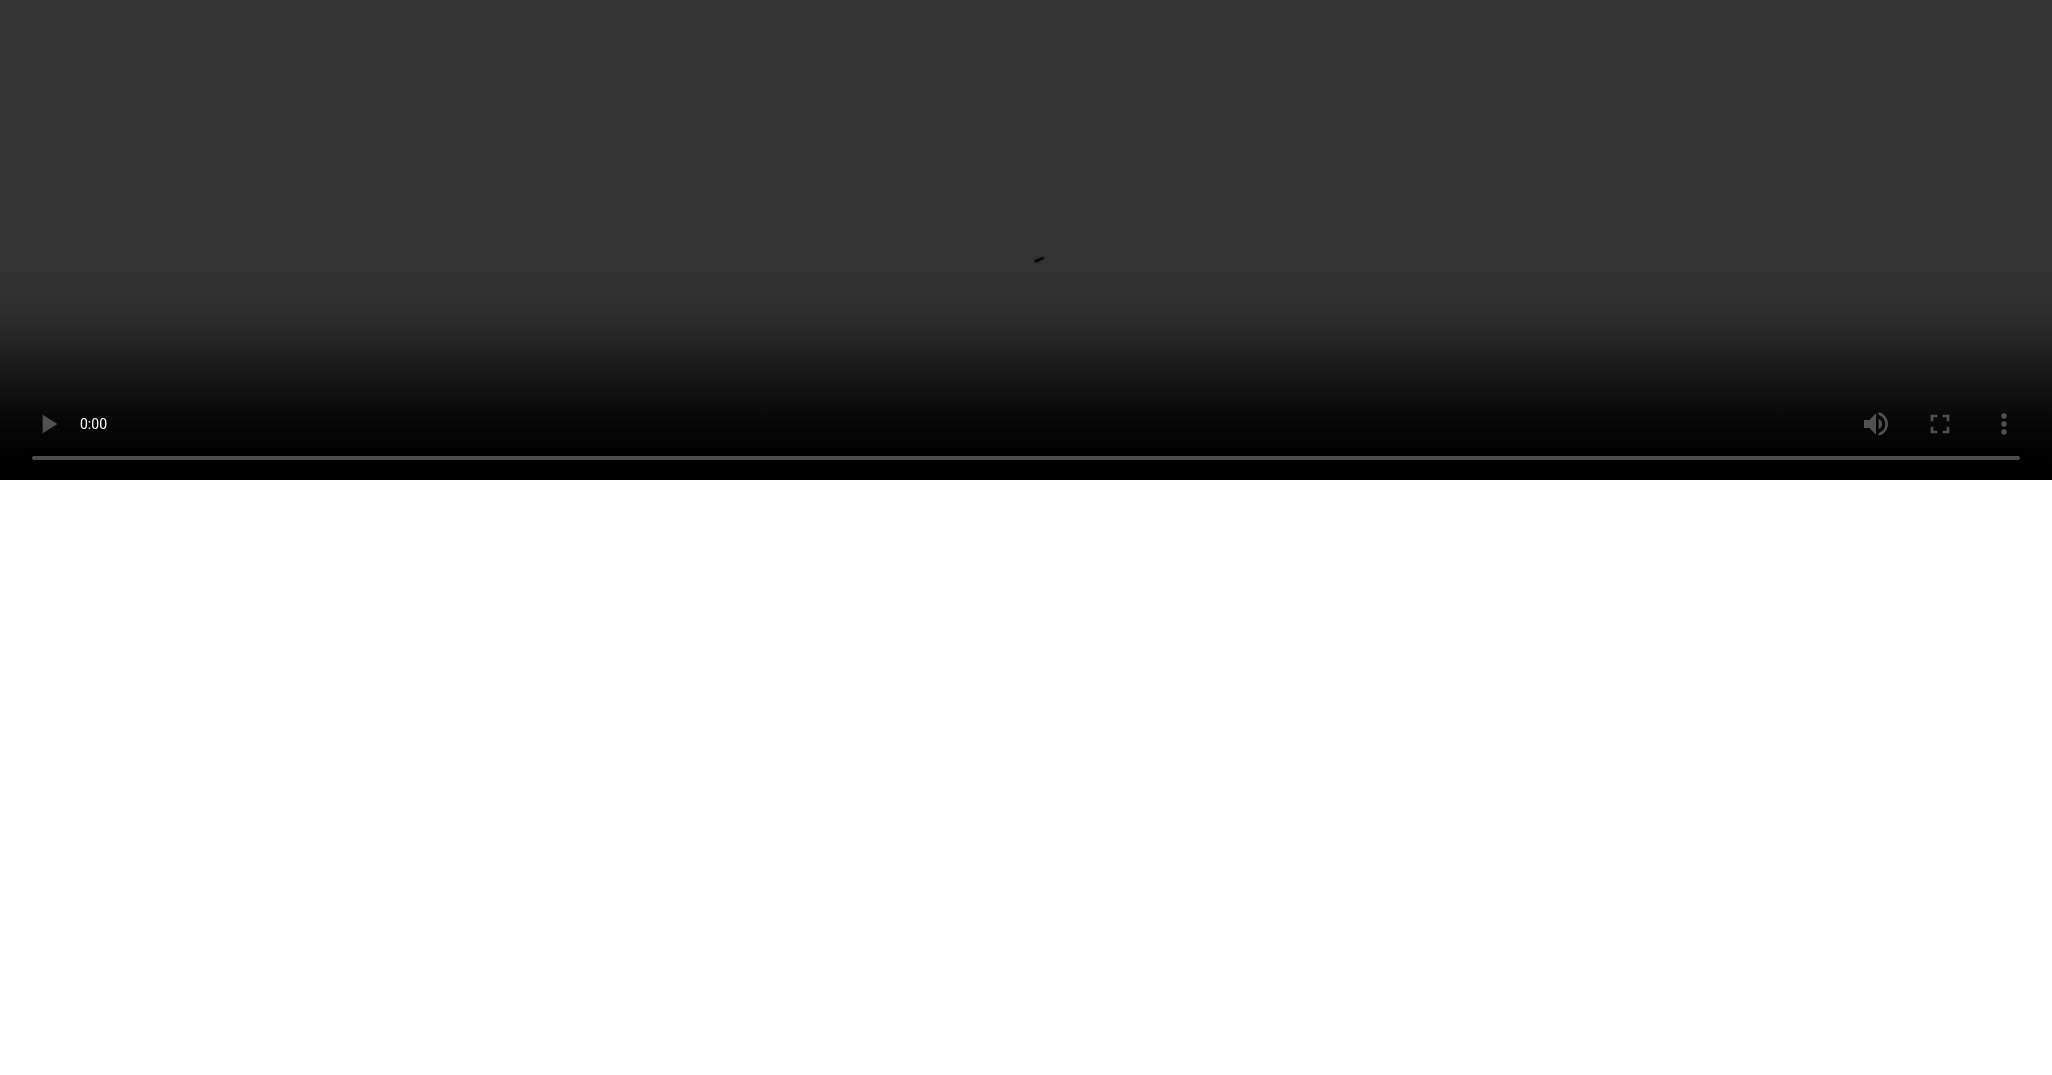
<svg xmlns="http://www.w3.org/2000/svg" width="2052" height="1075">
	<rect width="100%" height="100%" fill="#FFFFFF" />
	<image x="0" y="0" width="2052" height="480" href="assets/img1.png" />
</svg>
